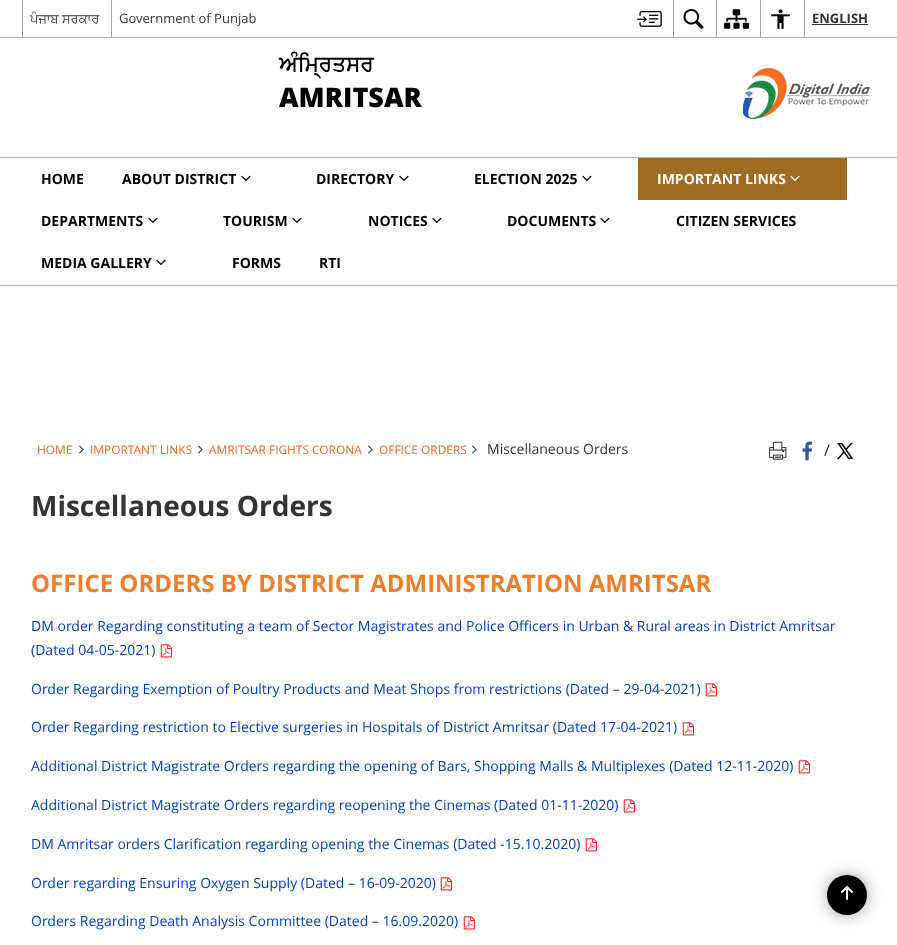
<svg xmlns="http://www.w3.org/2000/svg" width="897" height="945">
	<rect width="100%" height="100%" fill="#FFFFFF" />
	<rect x="0" y="37" width="897" height="1" fill="#ABABAB" />
	<rect x="22" y="0" width="1" height="37" fill="#A3A3A3" />
	<text x="30" y="23" font-family="FreeSans" font-size="13" fill="#333333">ਪੰਜਾਬ ਸਰਕਾਰ</text>
	<rect x="111" y="0" width="1" height="37" fill="#A3A3A3" />
	<text x="119" y="23" font-family="Open Sans" font-size="13" fill="#333333">Government of Punjab</text>
	<image x="637" y="10" width="25" height="17" href="assets/img1.png" />
	<rect x="673" y="0" width="1" height="37" fill="#A3A3A3" />
	<image x="683" y="9" width="21" height="20" href="assets/img2.png" />
	<rect x="716" y="0" width="1" height="37" fill="#A3A3A3" />
	<image x="724" y="9" width="25" height="20" href="assets/img3.png" />
	<rect x="760" y="0" width="1" height="37" fill="#A3A3A3" />
	<image x="771" y="9" width="19" height="20" href="assets/img4.png" />
	<rect x="804" y="0" width="1" height="37" fill="#A3A3A3" />
	<text x="812" y="23" font-family="Open Sans" font-size="13" font-weight="700" fill="#333333">ENGLISH</text>
	<rect x="812" y="24" width="56" height="1" fill="#333333" />
	<text x="279" y="71" font-family="FreeSans" font-size="21.5" font-weight="700" fill="#000000">ਅੰਮ੍ਰਿਤਸਰ</text>
	<text x="279" y="107" font-family="Open Sans" font-size="27" font-weight="800" fill="#000000">AMRITSAR</text>
	<image x="743" y="68" width="127" height="51" href="assets/img5.png" />
	<rect x="0" y="157" width="897" height="1" fill="#B3B3B3" />
	<rect x="0" y="285" width="897" height="1" fill="#B3B3B3" />
	<g font-family="Open Sans" font-size="14" font-weight="700" fill="#000000">
		<text x="41" y="184">HOME</text>
		<text x="122" y="184">ABOUT DISTRICT</text>
	</g>
	<image x="241" y="175" width="10" height="7" href="assets/img6.png" />
	<text x="316" y="184" font-family="Open Sans" font-size="14" font-weight="700" fill="#000000">DIRECTORY</text>
	<image x="399" y="175" width="10" height="7" href="assets/img6.png" />
	<text x="474" y="184" font-family="Open Sans" font-size="14" font-weight="700" fill="#000000">ELECTION 2025</text>
	<image x="582" y="175" width="10" height="7" href="assets/img6.png" />
	<rect x="638" y="158" width="209" height="42" fill="#9E6B22" />
	<text x="657" y="184" font-family="Open Sans" font-size="14" font-weight="700" fill="#FFFFFF">IMPORTANT LINKS</text>
	<image x="790" y="175" width="10" height="7" href="assets/img7.png" />
	<text x="41" y="226" font-family="Open Sans" font-size="14" font-weight="700" fill="#000000">DEPARTMENTS</text>
	<image x="148" y="217" width="10" height="7" href="assets/img6.png" />
	<text x="223" y="226" font-family="Open Sans" font-size="14" font-weight="700" fill="#000000">TOURISM</text>
	<image x="292" y="217" width="10" height="7" href="assets/img6.png" />
	<text x="368" y="226" font-family="Open Sans" font-size="14" font-weight="700" fill="#000000">NOTICES</text>
	<image x="432" y="217" width="10" height="7" href="assets/img6.png" />
	<text x="507" y="226" font-family="Open Sans" font-size="14" font-weight="700" fill="#000000">DOCUMENTS</text>
	<image x="600" y="217" width="10" height="7" href="assets/img6.png" />
	<g font-family="Open Sans" font-size="14" font-weight="700" fill="#000000">
		<text x="676" y="226">CITIZEN SERVICES</text>
		<text x="41" y="268">MEDIA GALLERY</text>
	</g>
	<image x="156" y="259" width="10" height="7" href="assets/img6.png" />
	<g font-family="Open Sans" font-size="14" font-weight="700" fill="#000000">
		<text x="232" y="268">FORMS</text>
		<text x="319" y="268">RTI</text>
	</g>
	<text x="37" y="454" font-family="Open Sans" font-size="11.9" fill="#F26522">HOME</text>
	<image x="79" y="445" width="5" height="9" href="assets/img8.png" />
	<text x="90" y="454" font-family="Open Sans" font-size="11.9" fill="#F26522">IMPORTANT LINKS</text>
	<image x="198" y="445" width="5" height="9" href="assets/img8.png" />
	<text x="209" y="454" font-family="Open Sans" font-size="11.9" fill="#F26522">AMRITSAR FIGHTS CORONA</text>
	<image x="368" y="445" width="5" height="9" href="assets/img8.png" />
	<text x="379" y="454" font-family="Open Sans" font-size="11.9" fill="#F26522">OFFICE ORDERS</text>
	<image x="472" y="445" width="5" height="9" href="assets/img8.png" />
	<text x="487" y="454" font-family="Open Sans" font-size="14" fill="#333333">Miscellaneous Orders</text>
	<image x="769" y="441" width="18" height="19" href="assets/img9.png" />
	<image x="802" y="441" width="11" height="20" href="assets/img10.png" />
	<text x="824" y="456" font-family="Open Sans" font-size="16" fill="#333333">/</text>
	<image x="837" y="442" width="17" height="18" href="assets/img11.png" />
	<text x="31" y="516" font-family="Open Sans" font-size="28" font-weight="700" fill="#333333">Miscellaneous Orders</text>
	<text x="31" y="592" font-family="Open Sans" font-size="24" font-weight="700" fill="#EB7F2D">OFFICE ORDERS BY DISTRICT ADMINISTRATION AMRITSAR</text>
	<g font-family="Open Sans" font-size="14" fill="#0042BF">
		<text x="31" y="631">DM order Regarding constituting a team of Sector Magistrates and Police Officers in Urban &amp; Rural areas in District Amritsar</text>
		<text x="31" y="655">(Dated 04-05-2021)</text>
	</g>
	<image x="160" y="644" width="12" height="14" href="assets/img12.png" />
	<text x="31" y="694" font-family="Open Sans" font-size="14" fill="#0042BF">Order Regarding Exemption of Poultry Products and Meat Shops from restrictions (Dated – 29-04-2021)</text>
	<image x="705" y="683" width="12" height="14" href="assets/img12.png" />
	<text x="31" y="732" font-family="Open Sans" font-size="14" fill="#0042BF">Order Regarding restriction to Elective surgeries in Hospitals of District Amritsar (Dated 17-04-2021)</text>
	<image x="682" y="722" width="12" height="14" href="assets/img12.png" />
	<text x="31" y="771" font-family="Open Sans" font-size="14" fill="#0042BF">Additional District Magistrate Orders regarding the opening of Bars, Shopping Malls &amp; Multiplexes (Dated 12-11-2020)</text>
	<image x="798" y="760" width="12" height="14" href="assets/img12.png" />
	<text x="31" y="810" font-family="Open Sans" font-size="14" fill="#0042BF">Additional District Magistrate Orders regarding reopening the Cinemas (Dated 01-11-2020)</text>
	<image x="623" y="799" width="12" height="14" href="assets/img12.png" />
	<text x="31" y="849" font-family="Open Sans" font-size="14" fill="#0042BF">DM Amritsar orders Clarification regarding opening the Cinemas (Dated -15.10.2020)</text>
	<image x="585" y="838" width="12" height="14" href="assets/img12.png" />
	<text x="31" y="888" font-family="Open Sans" font-size="14" fill="#0042BF">Order regarding Ensuring Oxygen Supply (Dated – 16-09-2020)</text>
	<image x="440" y="877" width="12" height="14" href="assets/img12.png" />
	<text x="31" y="926" font-family="Open Sans" font-size="14" fill="#0042BF">Orders Regarding Death Analysis Committee (Dated – 16.09.2020)</text>
	<image x="463" y="916" width="12" height="14" href="assets/img12.png" />
	<rect x="832" y="880" width="30" height="30" rx="15" fill="#3C3C3C" filter="blur(9.5px)" />
	<circle cx="847" cy="895" r="20" fill="#000000" />
	<image x="841" y="886" width="12" height="14" href="assets/img13.png" />
</svg>
